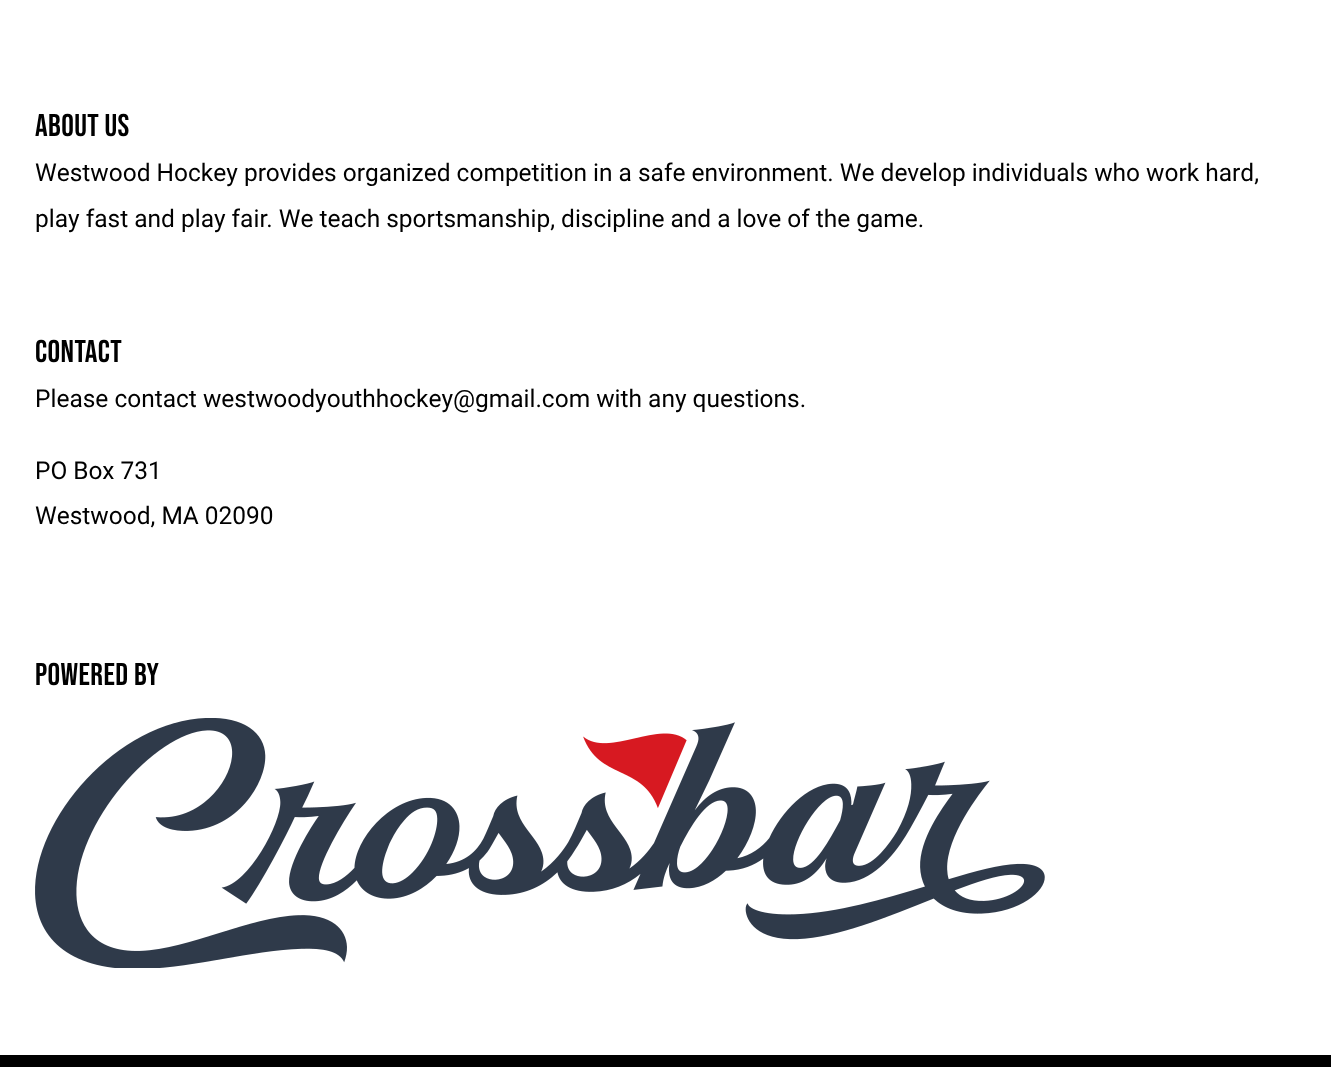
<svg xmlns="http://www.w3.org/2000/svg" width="1331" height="1067">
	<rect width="100%" height="100%" fill="#FFFFFF" />
	<text x="35" y="136" font-family="Bebas Neue" font-size="31.5" letter-spacing="0.4" fill="#000000">ABOUT US</text>
	<g font-family="Roboto" font-size="24.5" fill="#000000">
		<text x="35" y="181">Westwood Hockey provides organized competition in a safe environment. We develop individuals who work hard,</text>
		<text x="35" y="227">play fast and play fair. We teach sportsmanship, discipline and a love of the game.</text>
	</g>
	<text x="35" y="362" font-family="Bebas Neue" font-size="31.5" letter-spacing="0.4" fill="#000000">CONTACT</text>
	<g font-family="Roboto" font-size="24.5" fill="#000000">
		<text x="35" y="407">Please contact westwoodyouthhockey@gmail.com with any questions.</text>
		<text x="35" y="479">PO Box 731</text>
		<text x="35" y="524">Westwood, MA 02090</text>
	</g>
	<text x="35" y="685" font-family="Bebas Neue" font-size="31.5" letter-spacing="0.4" fill="#000000">POWERED BY</text>
	<image x="35" y="718" width="1010" height="250" href="assets/img1.png" />
	<rect x="0" y="1055" width="1331" height="12" fill="#000000" />
</svg>
